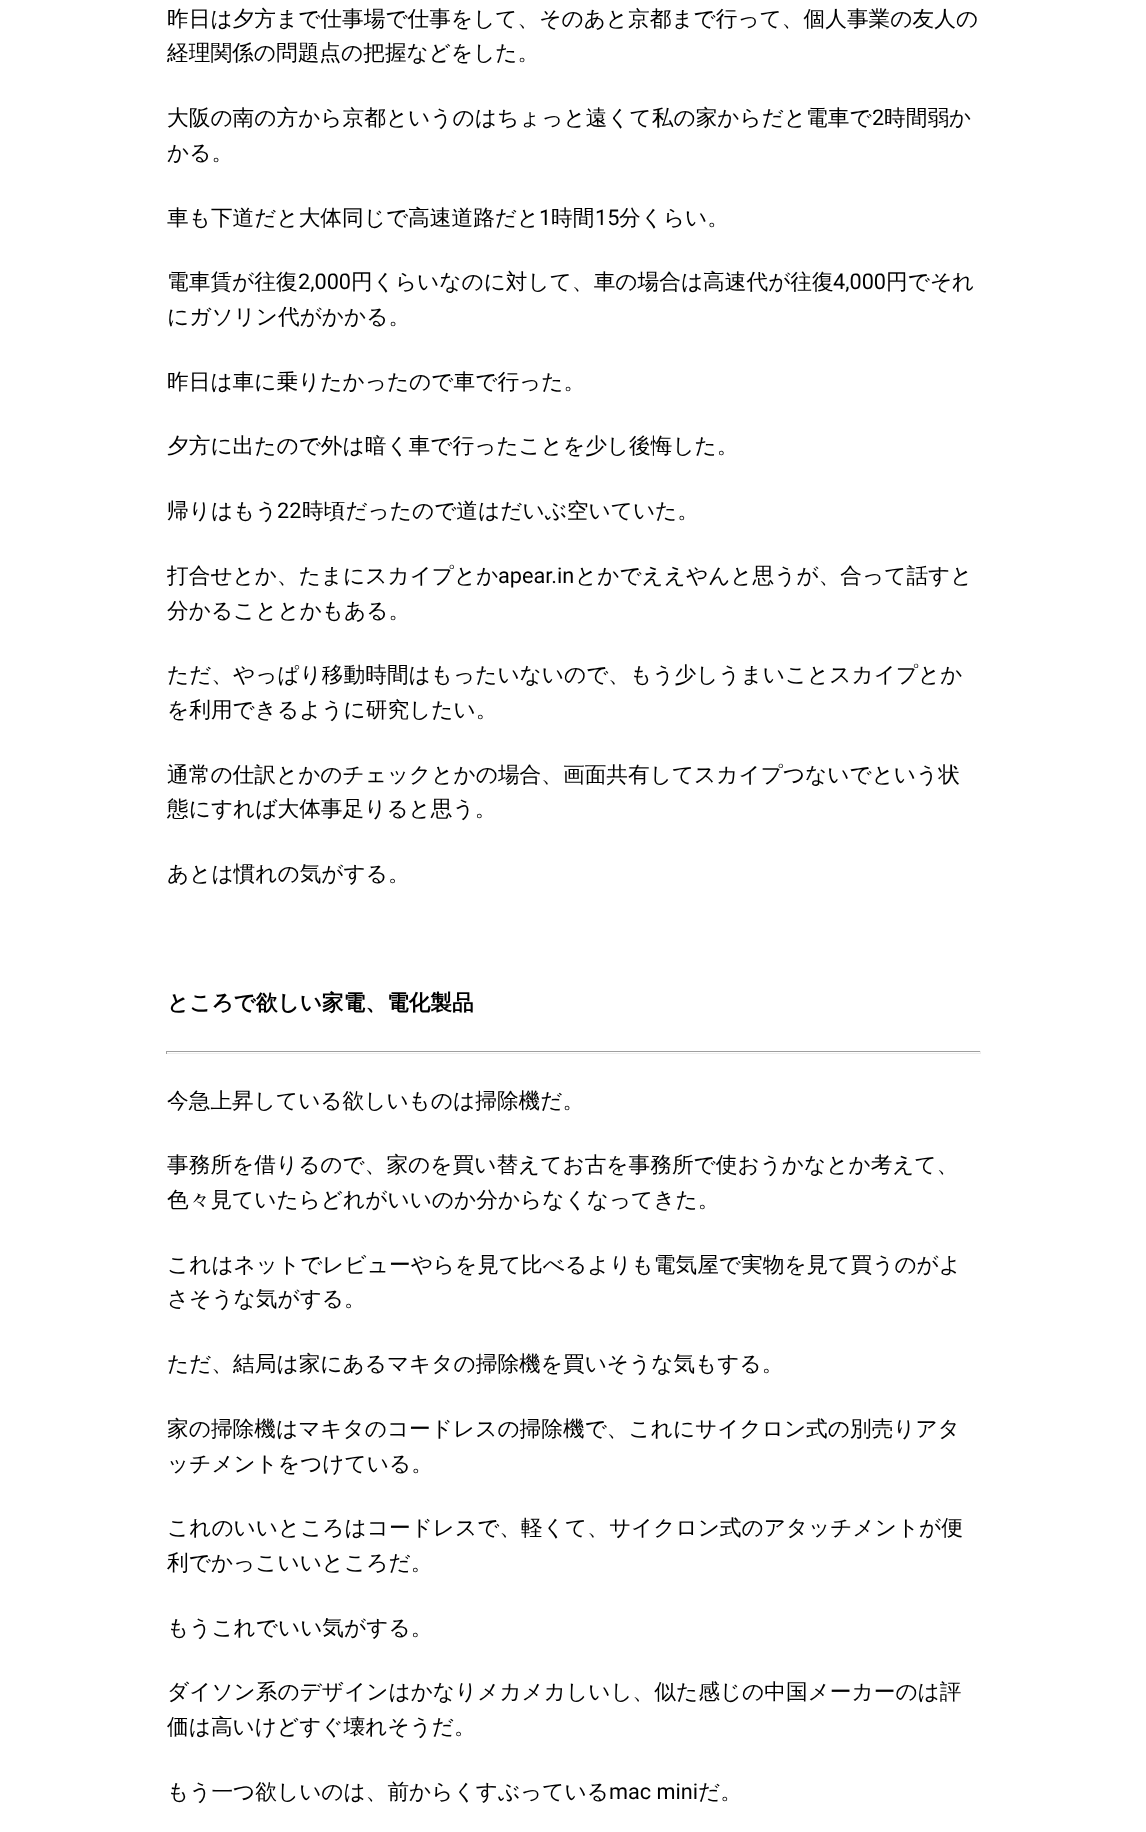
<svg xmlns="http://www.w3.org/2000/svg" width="1146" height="1832">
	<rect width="100%" height="100%" fill="#FFFFFF" />
	<g font-family="WenQuanYi Zen Hei" font-size="21.7" font-weight="500" fill="#000000">
		<text x="167" y="26">昨日は夕方まで仕事場で仕事をして、そのあと京都まで行って、個人事業の友人の</text>
		<text x="167" y="60">経理関係の問題点の把握などをした。</text>
		<text x="167" y="125">大阪の南の方から京都というのはちょっと遠くて私の家からだと電車で</text>
	</g>
	<text x="872" y="125" font-family="Roboto" font-size="21.7" fill="#000000">2</text>
	<g font-family="WenQuanYi Zen Hei" font-size="21.7" font-weight="500" fill="#000000">
		<text x="884" y="125">時間弱か</text>
		<text x="167" y="160">かる。</text>
		<text x="167" y="225">車も下道だと大体同じで高速道路だと</text>
	</g>
	<text x="539" y="225" font-family="Roboto" font-size="21.7" fill="#000000">1</text>
	<text x="551" y="225" font-family="WenQuanYi Zen Hei" font-size="21.7" font-weight="500" fill="#000000">時間</text>
	<text x="595" y="225" font-family="Roboto" font-size="21.7" fill="#000000">15</text>
	<g font-family="WenQuanYi Zen Hei" font-size="21.7" font-weight="500" fill="#000000">
		<text x="619" y="225">分くらい。</text>
		<text x="167" y="289">電車賃が往復</text>
	</g>
	<text x="298" y="289" font-family="Roboto" font-size="21.7" fill="#000000">2,000</text>
	<text x="351" y="289" font-family="WenQuanYi Zen Hei" font-size="21.7" font-weight="500" fill="#000000">円くらいなのに対して、車の場合は高速代が往復</text>
	<text x="833" y="289" font-family="Roboto" font-size="21.7" fill="#000000">4,000</text>
	<g font-family="WenQuanYi Zen Hei" font-size="21.7" font-weight="500" fill="#000000">
		<text x="886" y="289">円でそれ</text>
		<text x="167" y="324">にガソリン代がかかる。</text>
		<text x="167" y="389">昨日は車に乗りたかったので車で行った。</text>
		<text x="167" y="453">夕方に出たので外は暗く車で行ったことを少し後悔した。</text>
		<text x="167" y="518">帰りはもう</text>
	</g>
	<text x="277" y="518" font-family="Roboto" font-size="21.7" fill="#000000">22</text>
	<g font-family="WenQuanYi Zen Hei" font-size="21.7" font-weight="500" fill="#000000">
		<text x="302" y="518">時頃だったので道はだいぶ空いていた。</text>
		<text x="167" y="583">打合せとか、たまにスカイプとか</text>
	</g>
	<text x="498" y="583" font-family="Roboto" font-size="21.7" fill="#000000">apear.in</text>
	<g font-family="WenQuanYi Zen Hei" font-size="21.7" font-weight="500" fill="#000000">
		<text x="575" y="583">とかでええやんと思うが、合って話すと</text>
		<text x="167" y="618">分かることとかもある。</text>
		<text x="167" y="682">ただ、やっぱり移動時間はもったいないので、もう少しうまいことスカイプとか</text>
		<text x="167" y="717">を利用できるように研究したい。</text>
		<text x="167" y="782">通常の仕訳とかのチェックとかの場合、画面共有してスカイプつないでという状</text>
		<text x="167" y="816">態にすれば大体事足りると思う。</text>
		<text x="167" y="881">あとは慣れの気がする。</text>
	</g>
	<text x="167" y="1010" font-family="WenQuanYi Zen Hei" font-size="21.7" font-weight="700" fill="#000000">ところで欲しい家電、電化製品</text>
	<rect x="166" y="1051" width="815" height="1" fill="#9F9F9F" />
	<rect x="980" y="1051" width="1" height="3" fill="#EEEEEE" />
	<rect x="166" y="1053" width="815" height="1" fill="#EEEEEE" />
	<rect x="166" y="1051" width="1" height="3" fill="#9F9F9F" />
	<g font-family="WenQuanYi Zen Hei" font-size="21.7" font-weight="500" fill="#000000">
		<text x="167" y="1108">今急上昇している欲しいものは掃除機だ。</text>
		<text x="167" y="1172">事務所を借りるので、家のを買い替えてお古を事務所で使おうかなとか考えて、</text>
		<text x="167" y="1207">色々見ていたらどれがいいのか分からなくなってきた。</text>
		<text x="167" y="1272">これはネットでレビューやらを見て比べるよりも電気屋で実物を見て買うのがよ</text>
		<text x="167" y="1306">さそうな気がする。</text>
		<text x="167" y="1371">ただ、結局は家にあるマキタの掃除機を買いそうな気もする。</text>
		<text x="167" y="1436">家の掃除機はマキタのコードレスの掃除機で、これにサイクロン式の別売りアタ</text>
		<text x="167" y="1471">ッチメントをつけている。</text>
		<text x="167" y="1535">これのいいところはコードレスで、軽くて、サイクロン式のアタッチメントが便</text>
		<text x="167" y="1570">利でかっこいいところだ。</text>
		<text x="167" y="1635">もうこれでいい気がする。</text>
		<text x="167" y="1699">ダイソン系のデザインはかなりメカメカしいし、似た感じの中国メーカーのは評</text>
		<text x="167" y="1734">価は高いけどすぐ壊れそうだ。</text>
		<text x="167" y="1799">もう一つ欲しいのは、前からくすぶっている</text>
	</g>
	<text x="609" y="1799" font-family="Roboto" font-size="21.7" fill="#000000">mac mini</text>
	<text x="698" y="1799" font-family="WenQuanYi Zen Hei" font-size="21.7" font-weight="500" fill="#000000">だ。</text>
</svg>
